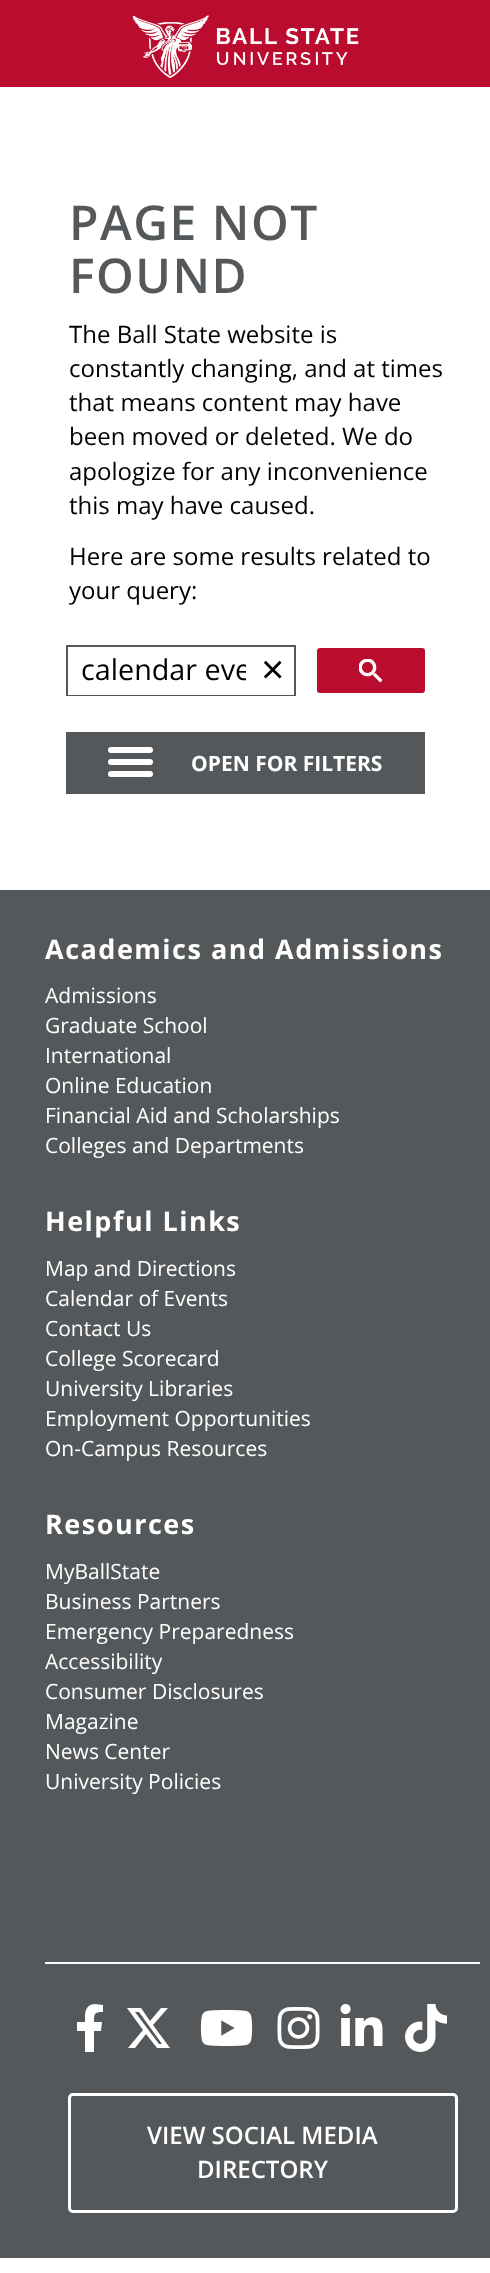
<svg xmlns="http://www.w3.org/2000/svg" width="490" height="2273">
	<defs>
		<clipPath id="clip1"><rect x="74" y="651" width="172" height="36" /></clipPath>
	</defs>
	<rect width="100%" height="100%" fill="#FFFFFF" />
	<rect x="0" y="0" width="490" height="87" fill="#BA0C2F" />
	<image x="132" y="15" width="227" height="63" href="assets/img1.png" />
	<g font-family="Open Sans" font-size="48" font-weight="600" letter-spacing="1.5" fill="#54585A">
		<text x="69" y="240">PAGE NOT</text>
		<text x="69" y="293">FOUND</text>
	</g>
	<g font-family="Open Sans" font-size="24" fill="#000000">
		<text x="69" y="343">The Ball State website is</text>
		<text x="69" y="377">constantly changing, and at times</text>
		<text x="69" y="411">that means content may have</text>
		<text x="69" y="445">been moved or deleted. We do</text>
		<text x="69" y="480">apologize for any inconvenience</text>
		<text x="69" y="514">this may have caused.</text>
		<text x="69" y="565">Here are some results related to</text>
		<text x="69" y="599">your query:</text>
	</g>
	<rect x="67" y="646" width="228" height="49" fill="none" stroke="#54585A" stroke-width="2" />
	<rect x="68" y="694" width="226" height="1" fill="#FFFFFF" />
	<g clip-path="url(#clip1)">
		<text x="81" y="680" font-family="Open Sans" font-size="28.75" fill="#000000">calendar eve</text>
	</g>
	<text x="261" y="683" font-family="Liberation Sans" font-size="40" fill="#000000">×</text>
	<rect x="318" y="649" width="106" height="43" rx="2" fill="#BA0C2F" stroke="#BA0C2F" stroke-width="2" />
	<image x="359" y="659" width="24" height="24" href="assets/img2.png" />
	<rect x="66" y="732" width="359" height="62" fill="#54585A" />
	<rect x="108" y="747" width="45" height="6" rx="3" fill="#FFFFFF" />
	<rect x="108" y="759" width="45" height="6" rx="3" fill="#FFFFFF" />
	<rect x="108" y="771" width="45" height="6" rx="3" fill="#FFFFFF" />
	<text x="191" y="771" font-family="Open Sans" font-size="21" font-weight="700" fill="#FFFFFF">OPEN FOR FILTERS</text>
	<rect x="0" y="890" width="490" height="1368" fill="#54585A" />
	<text x="45" y="959" font-family="Open Sans" font-size="27" font-weight="700" letter-spacing="1.5" fill="#FFFFFF">Academics and Admissions</text>
	<g font-family="Open Sans" font-size="21" fill="#FFFFFF">
		<text x="45" y="1003">Admissions</text>
		<text x="45" y="1033">Graduate School</text>
		<text x="45" y="1063">International</text>
		<text x="45" y="1093">Online Education</text>
		<text x="45" y="1123">Financial Aid and Scholarships</text>
		<text x="45" y="1153">Colleges and Departments</text>
	</g>
	<text x="45" y="1231" font-family="Open Sans" font-size="27" font-weight="700" letter-spacing="1.5" fill="#FFFFFF">Helpful Links</text>
	<g font-family="Open Sans" font-size="21" fill="#FFFFFF">
		<text x="45" y="1276">Map and Directions</text>
		<text x="45" y="1306">Calendar of Events</text>
		<text x="45" y="1336">Contact Us</text>
		<text x="45" y="1366">College Scorecard</text>
		<text x="45" y="1396">University Libraries</text>
		<text x="45" y="1426">Employment Opportunities</text>
		<text x="45" y="1456">On-Campus Resources</text>
	</g>
	<text x="45" y="1534" font-family="Open Sans" font-size="27" font-weight="700" letter-spacing="1.5" fill="#FFFFFF">Resources</text>
	<g font-family="Open Sans" font-size="21" fill="#FFFFFF">
		<text x="45" y="1579">MyBallState</text>
		<text x="45" y="1609">Business Partners</text>
		<text x="45" y="1639">Emergency Preparedness</text>
		<text x="45" y="1669">Accessibility</text>
		<text x="45" y="1699">Consumer Disclosures</text>
		<text x="45" y="1729">Magazine</text>
		<text x="45" y="1759">News Center</text>
		<text x="45" y="1789">University Policies</text>
	</g>
	<rect x="45" y="1962" width="435" height="2" fill="#FFFFFF" />
	<path d="M101 2031L102 2022H94C94 2014 94 2012 103 2012V2005L95 2004C84 2005 85 2014 85 2022H77V2031H85V2052H94V2031Z" fill="#FFFFFF" />
	<path d="M161 2008H168L153 2025L170 2048H157L146 2034L135 2048H128L143 2030L127 2008H141L150 2021ZM159 2044H162L139 2012H135Z" fill="#FFFFFF" />
	<image x="200" y="2010" width="53" height="36" href="assets/img3.png" />
	<image x="277" y="2007" width="43" height="42" href="assets/img4.png" />
	<image x="340" y="2004" width="43" height="42" href="assets/img5.png" />
	<image x="405" y="2004" width="42" height="48" href="assets/img6.png" />
	<rect x="69.5" y="2094.5" width="387" height="117" rx="3.5" fill="none" stroke="#FFFFFF" stroke-width="3" />
	<g font-family="Open Sans" font-size="24" font-weight="600" fill="#FFFFFF">
		<text x="147" y="2144">VIEW SOCIAL MEDIA</text>
		<text x="197" y="2178">DIRECTORY</text>
	</g>
</svg>
